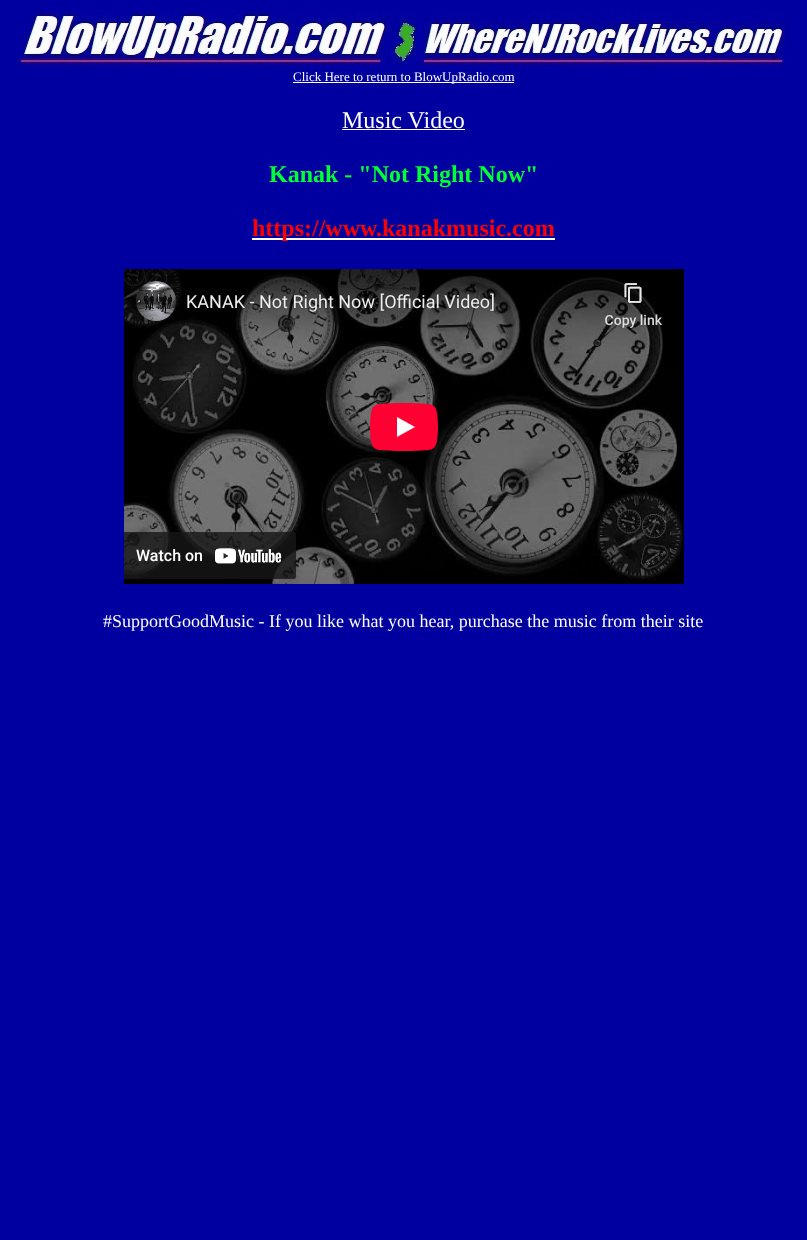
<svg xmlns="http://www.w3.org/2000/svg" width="807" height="1240">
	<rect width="100%" height="100%" fill="#0000A0" />
	<image x="15" y="10" width="772" height="59" href="assets/img1.png" />
	<rect x="293" y="82" width="221" height="1" fill="#FFFFFF" />
	<text x="293" y="81" font-family="Liberation Serif" font-size="13" fill="#FFFFFF">Click Here to return to BlowUpRadio.com</text>
	<text x="342" y="128" font-family="Liberation Serif" font-size="24" fill="#FFFFFF">Music Video</text>
	<rect x="342" y="129" width="123" height="1" fill="#FFFFFF" />
	<text x="269" y="182" font-family="Liberation Serif" font-size="24" font-weight="700" fill="#00FF33">Kanak - "Not Right Now"</text>
	<rect x="252" y="238" width="303" height="2" fill="#FFFFFF" />
	<text x="252" y="236" font-family="Liberation Serif" font-size="24" font-weight="700" fill="#FF0000">https://www.kanakmusic.com</text>
	<image x="124" y="269" width="560" height="315" href="assets/img2.png" />
	<text x="103" y="627" font-family="Liberation Serif" font-size="18" fill="#FFFFFF">#SupportGoodMusic - If you like what you hear, purchase the music from their site</text>
</svg>
